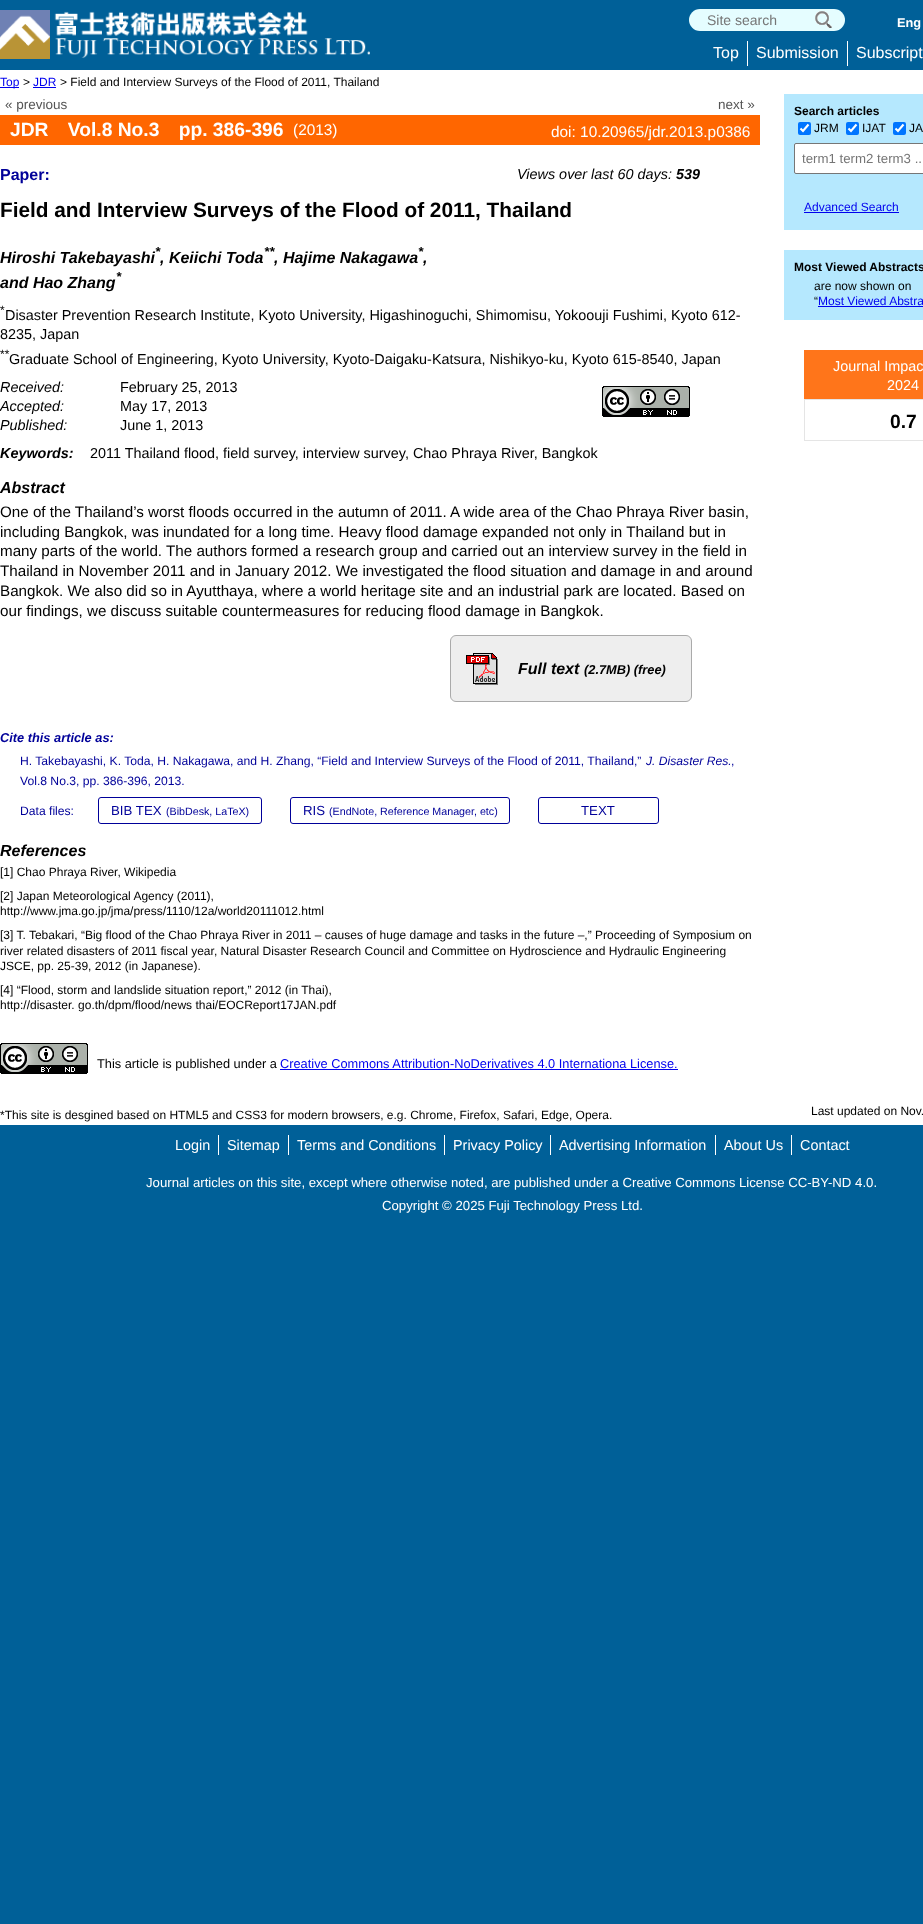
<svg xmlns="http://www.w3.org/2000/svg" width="923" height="1924">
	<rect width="100%" height="100%" fill="#006098" />
	<image x="0" y="10" width="370" height="49" href="assets/img1.png" />
	<rect x="689" y="9" width="156" height="22" rx="11" fill="#E5FDFF" />
	<text x="707" y="25" font-family="Liberation Sans" font-size="14" fill="#757575">Site search</text>
	<image x="815" y="11" width="17" height="17" href="assets/img2.png" />
	<text x="897" y="27" font-family="Liberation Sans" font-size="12.8" font-weight="700" fill="#FFFFFF">Eng</text>
	<rect x="747" y="41" width="1" height="25" fill="#FFFFFF" />
	<text x="713" y="58" font-family="Liberation Sans" font-size="16" fill="#FFFFFF">Top</text>
	<rect x="847" y="41" width="1" height="25" fill="#FFFFFF" />
	<g font-family="Liberation Sans" font-size="16" fill="#FFFFFF">
		<text x="756" y="58">Submission</text>
		<text x="856" y="58">Subscript</text>
	</g>
	<rect x="0" y="70" width="923" height="1055" fill="#FFFFFF" />
	<rect x="0" y="87" width="19" height="1" fill="#0000EE" />
	<text x="0" y="86" font-family="Liberation Sans" font-size="12" fill="#0000EE">Top</text>
	<text x="23" y="86" font-family="Liberation Sans" font-size="12" fill="#000000">&gt;</text>
	<text x="33" y="86" font-family="Liberation Sans" font-size="12" fill="#0000EE">JDR</text>
	<rect x="33" y="87" width="23" height="1" fill="#0000EE" />
	<text x="60" y="86" font-family="Liberation Sans" font-size="12" fill="#000000">&gt; Field and Interview Surveys of the Flood of 2011, Thailand</text>
	<g font-family="Liberation Sans" font-size="13.5" fill="#555555">
		<text x="5" y="109">« previous</text>
		<text x="718" y="109">next »</text>
	</g>
	<rect x="0" y="115" width="760" height="30" fill="#FF6600" />
	<text x="10" y="136" font-family="Liberation Sans" font-size="19.25" font-weight="700" fill="#FFFFFF">JDR Vol.8 No.3 pp. 386-396</text>
	<g font-family="Liberation Sans" font-size="15.4" fill="#FFFFFF">
		<text x="293" y="135">(2013)</text>
		<text x="551" y="137">doi: 10.20965/jdr.2013.p0386</text>
	</g>
	<text x="0" y="180" font-family="Liberation Sans" font-size="16" font-weight="700" fill="#000099">Paper:</text>
	<text x="517" y="179" font-family="Liberation Sans" font-size="14.4" font-style="italic" fill="#000000">Views over last 60 days:</text>
	<text x="676" y="179" font-family="Liberation Sans" font-size="14.4" font-weight="700" font-style="italic" fill="#000000">539</text>
	<text x="0" y="217" font-family="Liberation Sans" font-size="20.8" font-weight="700" fill="#000000">Field and Interview Surveys of the Flood of 2011, Thailand</text>
	<g font-family="Liberation Sans" font-size="13.25" font-weight="700" font-style="italic" fill="#000000">
		<text x="155" y="256">*</text>
		<text x="264" y="256">**</text>
		<text x="418" y="256">*</text>
	</g>
	<g font-family="Liberation Sans" font-size="16" font-weight="700" font-style="italic" fill="#000000">
		<text x="0" y="263">Hiroshi Takebayashi</text>
		<text x="160" y="263">, Keiichi Toda</text>
		<text x="274" y="263">, Hajime Nakagawa</text>
		<text x="423" y="263">,</text>
	</g>
	<text x="116" y="281" font-family="Liberation Sans" font-size="13.25" font-weight="700" font-style="italic" fill="#000000">*</text>
	<text x="0" y="288" font-family="Liberation Sans" font-size="16" font-weight="700" font-style="italic" fill="#000000">and Hao Zhang</text>
	<text x="0" y="314" font-family="Liberation Sans" font-size="12" fill="#000000">*</text>
	<g font-family="Liberation Sans" font-size="14.4" fill="#000000">
		<text x="5" y="320">Disaster Prevention Research Institute, Kyoto University, Higashinoguchi, Shimomisu, Yokoouji Fushimi, Kyoto 612-</text>
		<text x="0" y="339">8235, Japan</text>
	</g>
	<text x="0" y="358" font-family="Liberation Sans" font-size="12" fill="#000000">**</text>
	<text x="9" y="364" font-family="Liberation Sans" font-size="14.4" fill="#000000">Graduate School of Engineering, Kyoto University, Kyoto-Daigaku-Katsura, Nishikyo-ku, Kyoto 615-8540, Japan</text>
	<text x="0" y="392" font-family="Liberation Sans" font-size="14.4" font-style="italic" fill="#000000">Received:</text>
	<text x="120" y="392" font-family="Liberation Sans" font-size="14.4" fill="#000000">February 25, 2013</text>
	<text x="0" y="411" font-family="Liberation Sans" font-size="14.4" font-style="italic" fill="#000000">Accepted:</text>
	<text x="120" y="411" font-family="Liberation Sans" font-size="14.4" fill="#000000">May 17, 2013</text>
	<text x="0" y="430" font-family="Liberation Sans" font-size="14.4" font-style="italic" fill="#000000">Published:</text>
	<text x="120" y="430" font-family="Liberation Sans" font-size="14.4" fill="#000000">June 1, 2013</text>
	<image x="602" y="386" width="88" height="31" href="assets/img3.png" />
	<text x="0" y="458" font-family="Liberation Sans" font-size="14.4" font-weight="700" font-style="italic" fill="#000000">Keywords:</text>
	<text x="90" y="458" font-family="Liberation Sans" font-size="14.4" fill="#000000">2011 Thailand flood, field survey, interview survey, Chao Phraya River, Bangkok</text>
	<text x="0" y="493" font-family="Liberation Sans" font-size="16" font-weight="700" font-style="italic" fill="#000000">Abstract</text>
	<g font-family="Liberation Sans" font-size="15.2" fill="#000000">
		<text x="0" y="517">One of the Thailand’s worst floods occurred in the autumn of 2011. A wide area of the Chao Phraya River basin,</text>
		<text x="0" y="537">including Bangkok, was inundated for a long time. Heavy flood damage expanded not only in Thailand but in</text>
		<text x="0" y="556">many parts of the world. The authors formed a research group and carried out an interview survey in the field in</text>
		<text x="0" y="576">Thailand in November 2011 and in January 2012. We investigated the flood situation and damage in and around</text>
		<text x="0" y="596">Bangkok. We also did so in Ayutthaya, where a world heritage site and an industrial park are located. Based on</text>
		<text x="0" y="616">our findings, we discuss suitable countermeasures for reducing flood damage in Bangkok.</text>
	</g>
	<rect x="450.5" y="635.5" width="241" height="66" rx="5.5" fill="#EEEEEE" stroke="#AAAAAA" />
	<image x="466" y="653" width="32" height="32" href="assets/img4.png" />
	<text x="518" y="674" font-family="Liberation Sans" font-size="16" font-weight="700" font-style="italic" fill="#000000">Full text</text>
	<text x="584" y="674" font-family="Liberation Sans" font-size="12.8" font-weight="700" font-style="italic" fill="#000000">(2.7MB) (free)</text>
	<text x="0" y="742" font-family="Liberation Sans" font-size="12.8" font-weight="700" font-style="italic" fill="#000099">Cite this article as:</text>
	<text x="20" y="765" font-family="Liberation Sans" font-size="12.15" fill="#000099">H. Takebayashi, K. Toda, H. Nakagawa, and H. Zhang, “Field and Interview Surveys of the Flood of 2011, Thailand,”</text>
	<text x="646" y="765" font-family="Liberation Sans" font-size="12.15" font-style="italic" fill="#000099">J. Disaster Res.</text>
	<g font-family="Liberation Sans" font-size="12.15" fill="#000099">
		<text x="731" y="765">,</text>
		<text x="20" y="785">Vol.8 No.3, pp. 386-396, 2013.</text>
		<text x="20" y="815">Data files:</text>
	</g>
	<rect x="98.5" y="797.5" width="163" height="26" rx="2.5" fill="none" stroke="#000099" />
	<text x="111" y="815" font-family="Liberation Sans" font-size="13.25" fill="#000099">BIB TEX</text>
	<text x="166" y="815" font-family="Liberation Sans" font-size="10.7" fill="#000099">(BibDesk, LaTeX)</text>
	<rect x="290.5" y="797.5" width="219" height="26" rx="2.5" fill="none" stroke="#000099" />
	<text x="303" y="815" font-family="Liberation Sans" font-size="13.25" fill="#000099">RIS</text>
	<text x="329" y="815" font-family="Liberation Sans" font-size="10.7" fill="#000099">(EndNote, Reference Manager, etc)</text>
	<rect x="538.5" y="797.5" width="120" height="26" rx="2.5" fill="none" stroke="#000099" />
	<text x="581" y="815" font-family="Liberation Sans" font-size="13.25" fill="#000099">TEXT</text>
	<text x="0" y="856" font-family="Liberation Sans" font-size="16" font-weight="700" font-style="italic" fill="#000000">References</text>
	<g font-family="Liberation Sans" font-size="12" fill="#000000">
		<text x="0" y="876">[1] Chao Phraya River, Wikipedia</text>
		<text x="0" y="900">[2] Japan Meteorological Agency (2011),</text>
		<text x="0" y="915">http://www.jma.go.jp/jma/press/1110/12a/world20111012.html</text>
		<text x="0" y="939">[3] T. Tebakari, “Big flood of the Chao Phraya River in 2011 – causes of huge damage and tasks in the future –,” Proceeding of Symposium on</text>
		<text x="0" y="955">river related disasters of 2011 fiscal year, Natural Disaster Research Council and Committee on Hydroscience and Hydraulic Engineering</text>
		<text x="0" y="970">JSCE, pp. 25-39, 2012 (in Japanese).</text>
		<text x="0" y="994">[4] “Flood, storm and landslide situation report,” 2012 (in Thai),</text>
		<text x="0" y="1009">http://disaster. go.th/dpm/flood/news thai/EOCReport17JAN.pdf</text>
	</g>
	<image x="0" y="1043" width="88" height="31" href="assets/img3.png" />
	<text x="97" y="1068" font-family="Liberation Sans" font-size="12.8" fill="#000000">This article is published under a</text>
	<text x="280" y="1068" font-family="Liberation Sans" font-size="12.8" fill="#0000EE">Creative Commons Attribution-NoDerivatives 4.0 Internationa License.</text>
	<rect x="280" y="1069" width="398" height="1" fill="#0000EE" />
	<rect x="784" y="94" width="139" height="136" fill="#B5E8FE" />
	<text x="794" y="115" font-family="Liberation Sans" font-size="12" font-weight="700" fill="#000000">Search articles</text>
	<rect x="798" y="122" width="13" height="13" rx="2" fill="#0075FF" />
	<path d="M800.5 128.5L803 131L808.5 124.5" fill="none" stroke="#FFFFFF" stroke-width="2.1" />
	<text x="814" y="132" font-family="Liberation Sans" font-size="12" fill="#000000">JRM</text>
	<rect x="846" y="122" width="13" height="13" rx="2" fill="#0075FF" />
	<path d="M848.5 128.5L851 131L856.5 124.5" fill="none" stroke="#FFFFFF" stroke-width="2.1" />
	<text x="862" y="132" font-family="Liberation Sans" font-size="12" fill="#000000">IJAT</text>
	<rect x="893" y="122" width="13" height="13" rx="2" fill="#0075FF" />
	<path d="M895.5 128.5L898 131L903.5 124.5" fill="none" stroke="#FFFFFF" stroke-width="2.1" />
	<text x="909" y="132" font-family="Liberation Sans" font-size="12" fill="#000000">JA</text>
	<rect x="794.5" y="143.5" width="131" height="30" rx="1.5" fill="#FFFFFF" stroke="#767676" />
	<text x="802" y="163" font-family="Liberation Sans" font-size="13.25" fill="#757575">term1 term2 term3 ..</text>
	<text x="804" y="211" font-family="Liberation Sans" font-size="12" fill="#0000EE">Advanced Search</text>
	<rect x="804" y="212" width="95" height="1" fill="#0000EE" />
	<rect x="784" y="250" width="139" height="70" fill="#B5E8FE" />
	<text x="794" y="271" font-family="Liberation Sans" font-size="12" font-weight="700" fill="#000000">Most Viewed Abstracts</text>
	<g font-family="Liberation Sans" font-size="12" fill="#000000">
		<text x="814" y="290">are now shown on</text>
		<text x="814" y="305">“</text>
	</g>
	<text x="818" y="305" font-family="Liberation Sans" font-size="12" fill="#0000EE">Most Viewed Abstra</text>
	<rect x="818" y="306" width="105" height="1" fill="#0000EE" />
	<rect x="804" y="350" width="119" height="49" fill="#FF751A" />
	<g font-family="Liberation Sans" font-size="14.4" fill="#FFFFFF">
		<text x="833" y="371">Journal Impac</text>
		<text x="887" y="390">2024</text>
	</g>
	<rect x="804.5" y="399.5" width="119" height="41" fill="none" stroke="#E5E5E5" />
	<text x="890" y="428" font-family="Liberation Sans" font-size="19.25" font-weight="700" fill="#000000">0.7</text>
	<g font-family="Liberation Sans" font-size="12" fill="#000000">
		<text x="0" y="1119">*This site is desgined based on HTML5 and CSS3 for modern browsers, e.g. Chrome, Firefox, Safari, Edge, Opera.</text>
		<text x="811" y="1115">Last updated on Nov.</text>
	</g>
	<rect x="218" y="1135" width="1" height="20" fill="#FFFFFF" />
	<text x="175" y="1150" font-family="Liberation Sans" font-size="14.4" fill="#FFFFFF">Login</text>
	<rect x="288" y="1135" width="1" height="20" fill="#FFFFFF" />
	<text x="227" y="1150" font-family="Liberation Sans" font-size="14.4" fill="#FFFFFF">Sitemap</text>
	<rect x="444" y="1135" width="1" height="20" fill="#FFFFFF" />
	<text x="297" y="1150" font-family="Liberation Sans" font-size="14.4" fill="#FFFFFF">Terms and Conditions</text>
	<rect x="550" y="1135" width="1" height="20" fill="#FFFFFF" />
	<text x="453" y="1150" font-family="Liberation Sans" font-size="14.4" fill="#FFFFFF">Privacy Policy</text>
	<rect x="715" y="1135" width="1" height="20" fill="#FFFFFF" />
	<text x="559" y="1150" font-family="Liberation Sans" font-size="14.4" fill="#FFFFFF">Advertising Information</text>
	<rect x="791" y="1135" width="1" height="20" fill="#FFFFFF" />
	<g font-family="Liberation Sans" font-size="14.4" fill="#FFFFFF">
		<text x="724" y="1150">About Us</text>
		<text x="800" y="1150">Contact</text>
	</g>
	<g font-family="Liberation Sans" font-size="13.2" fill="#FFFFFF">
		<text x="146" y="1187">Journal articles on this site, except where otherwise noted, are published under a Creative Commons License CC-BY-ND 4.0.</text>
		<text x="382" y="1210">Copyright © 2025 Fuji Technology Press Ltd.</text>
	</g>
</svg>
